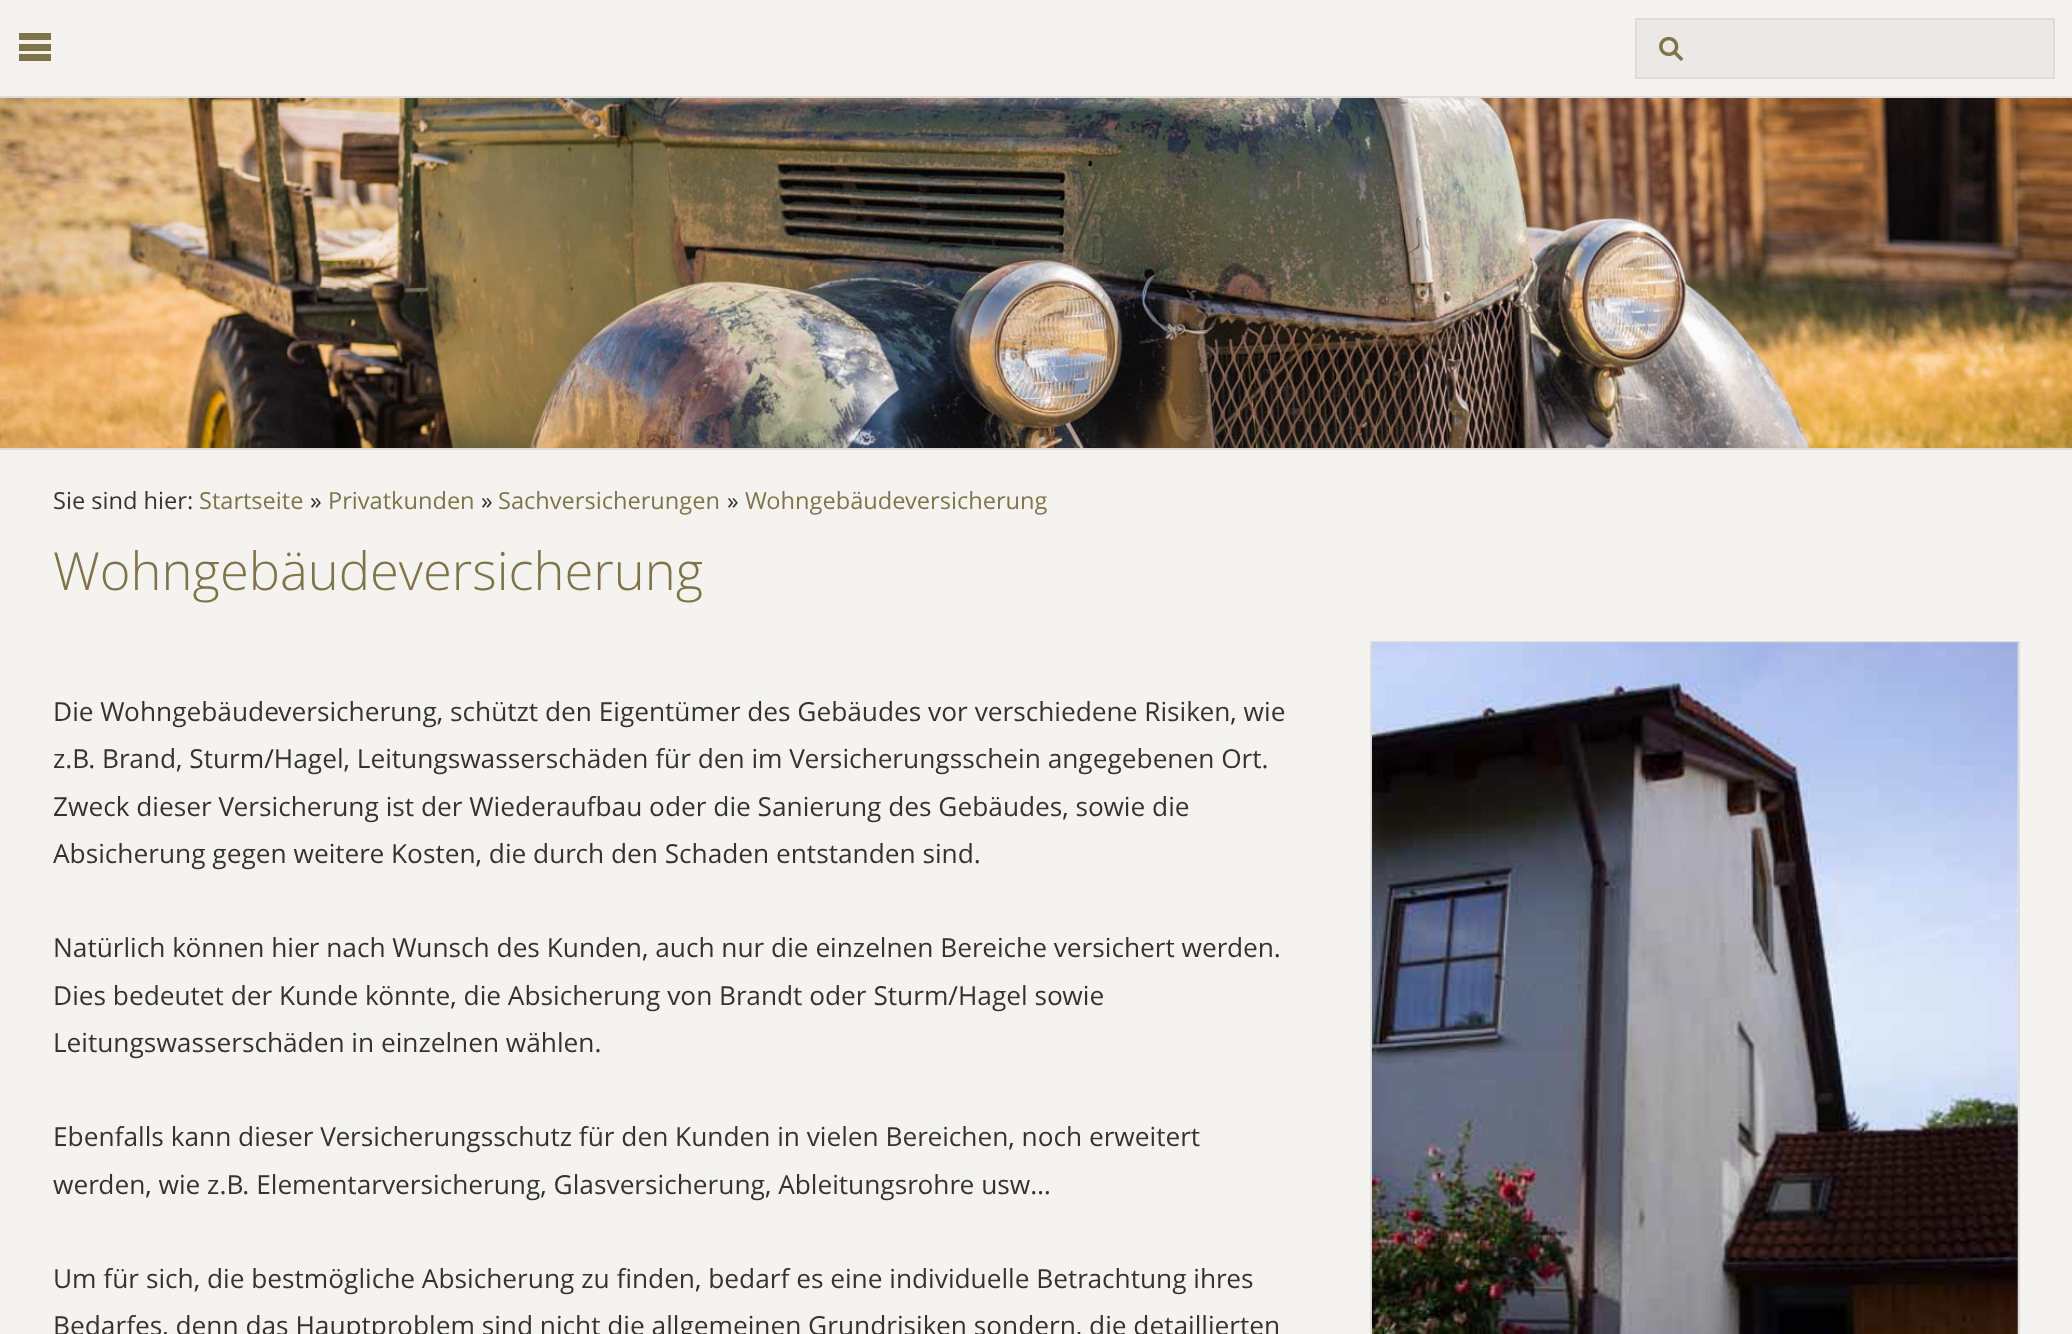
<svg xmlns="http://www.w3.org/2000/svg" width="2072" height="1334">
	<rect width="100%" height="100%" fill="#F4F3EF" />
	<image x="19" y="33" width="32" height="28" href="assets/img1.png" />
	<rect x="1637" y="20" width="416" height="57" fill="#EAE9E5" />
	<image x="1659" y="36" width="25" height="25" href="assets/img2.png" />
	<rect x="1636" y="19" width="418" height="59" fill="none" stroke="#DDDCD9" stroke-width="2" />
	<rect x="0" y="96" width="2072" height="2" fill="#DDDCD9" />
	<rect x="0" y="448" width="2072" height="2" fill="#DDDCD9" />
	<image x="0" y="98" width="2072" height="350" href="assets/img3.png" />
	<text x="53" y="509" font-family="Open Sans" font-size="23.6" fill="#333333">Sie sind hier:</text>
	<text x="199" y="509" font-family="Open Sans" font-size="23.6" fill="#7F7449">Startseite</text>
	<text x="310" y="509" font-family="Open Sans" font-size="23.6" fill="#333333">»</text>
	<text x="328" y="509" font-family="Open Sans" font-size="23.6" fill="#7F7449">Privatkunden</text>
	<text x="481" y="509" font-family="Open Sans" font-size="23.6" fill="#333333">»</text>
	<text x="498" y="509" font-family="Open Sans" font-size="23.6" fill="#7F7449">Sachversicherungen</text>
	<text x="727" y="509" font-family="Open Sans" font-size="23.6" fill="#333333">»</text>
	<text x="745" y="509" font-family="Open Sans" font-size="23.6" fill="#7F7449">Wohngebäudeversicherung</text>
	<text x="53" y="590" font-family="Open Sans" font-size="52.5" font-weight="300" fill="#7F7449">Wohngebäudeversicherung</text>
	<g font-family="Open Sans" font-size="26.25" fill="#333333">
		<text x="53" y="721">Die Wohngebäudeversicherung, schützt den Eigentümer des Gebäudes vor verschiedene Risiken, wie</text>
		<text x="53" y="768">z.B. Brand, Sturm/Hagel, Leitungswasserschäden für den im Versicherungsschein angegebenen Ort.</text>
		<text x="53" y="816">Zweck dieser Versicherung ist der Wiederaufbau oder die Sanierung des Gebäudes, sowie die</text>
		<text x="53" y="863">Absicherung gegen weitere Kosten, die durch den Schaden entstanden sind.</text>
		<text x="53" y="957">Natürlich können hier nach Wunsch des Kunden, auch nur die einzelnen Bereiche versichert werden.</text>
		<text x="53" y="1005">Dies bedeutet der Kunde könnte, die Absicherung von Brandt oder Sturm/Hagel sowie</text>
		<text x="53" y="1052">Leitungswasserschäden in einzelnen wählen.</text>
		<text x="53" y="1146">Ebenfalls kann dieser Versicherungsschutz für den Kunden in vielen Bereichen, noch erweitert</text>
		<text x="53" y="1194">werden, wie z.B. Elementarversicherung, Glasversicherung, Ableitungsrohre usw…</text>
		<text x="53" y="1288">Um für sich, die bestmögliche Absicherung zu finden, bedarf es eine individuelle Betrachtung ihres</text>
		<text x="53" y="1335">Bedarfes, denn das Hauptproblem sind nicht die allgemeinen Grundrisiken sondern, die detaillierten</text>
	</g>
	<rect x="1371" y="642" width="648" height="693" fill="none" stroke="#DDDDDD" stroke-width="2" />
	<image x="1372" y="642" width="646" height="692" href="assets/img4.png" />
</svg>
